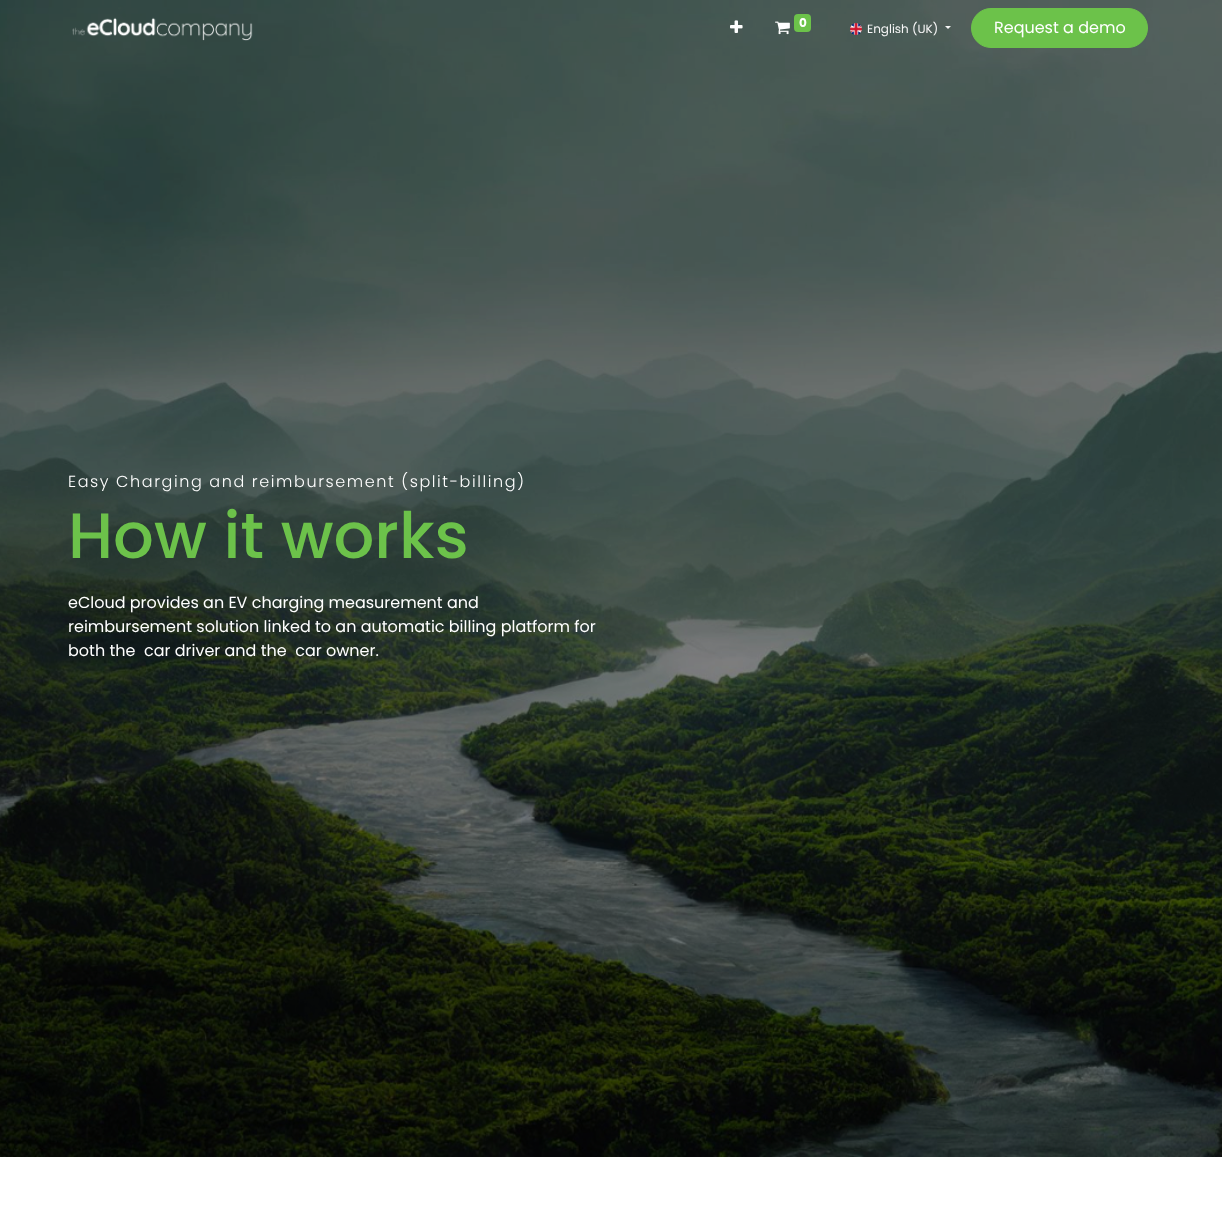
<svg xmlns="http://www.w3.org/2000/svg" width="1222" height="1226">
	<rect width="100%" height="100%" fill="#FFFFFF" />
	<image x="0" y="0" width="1222" height="1157" href="assets/img5.png" />
	<image x="72" y="17" width="181" height="24" href="assets/img1.png" />
	<image x="730" y="20" width="13" height="13" href="assets/img2.png" />
	<image x="775" y="21" width="15" height="14" href="assets/img3.png" />
	<rect x="794" y="14" width="17" height="18" rx="4" fill="#6CC24A" />
	<text x="799" y="27" font-family="Poppins" font-size="12" font-weight="700" fill="#FFFFFF">0</text>
	<image x="850" y="23" width="12" height="12" href="assets/img4.png" />
	<text x="867" y="33" font-family="Poppins" font-size="12" fill="#F6F6F6">English (UK)</text>
	<path d="M945 26H951L948 29Z" fill="#F6F6F6" />
	<rect x="971.5" y="8.5" width="176" height="39" rx="19.5" fill="#6CC24A" stroke="#6CC24A" />
	<text x="994" y="33" font-family="Poppins" font-size="16" fill="#FFFFFF">Request a demo</text>
	<text x="68" y="487" font-family="Poppins" font-size="16" font-weight="300" letter-spacing="1.6" fill="#FFFFFF">Easy Charging and reimbursement (split-billing)</text>
	<text x="68" y="558" font-family="Poppins" font-size="64" font-weight="500" fill="#6CC24A">How it works</text>
	<g font-family="Poppins" font-size="16" fill="#FFFFFF">
		<text x="68" y="608">eCloud provides an EV charging measurement and</text>
		<text x="68" y="632">reimbursement solution linked to an automatic billing platform for</text>
		<text x="68" y="656" xml:space="preserve">both the  car driver and the  car owner.</text>
	</g>
</svg>
